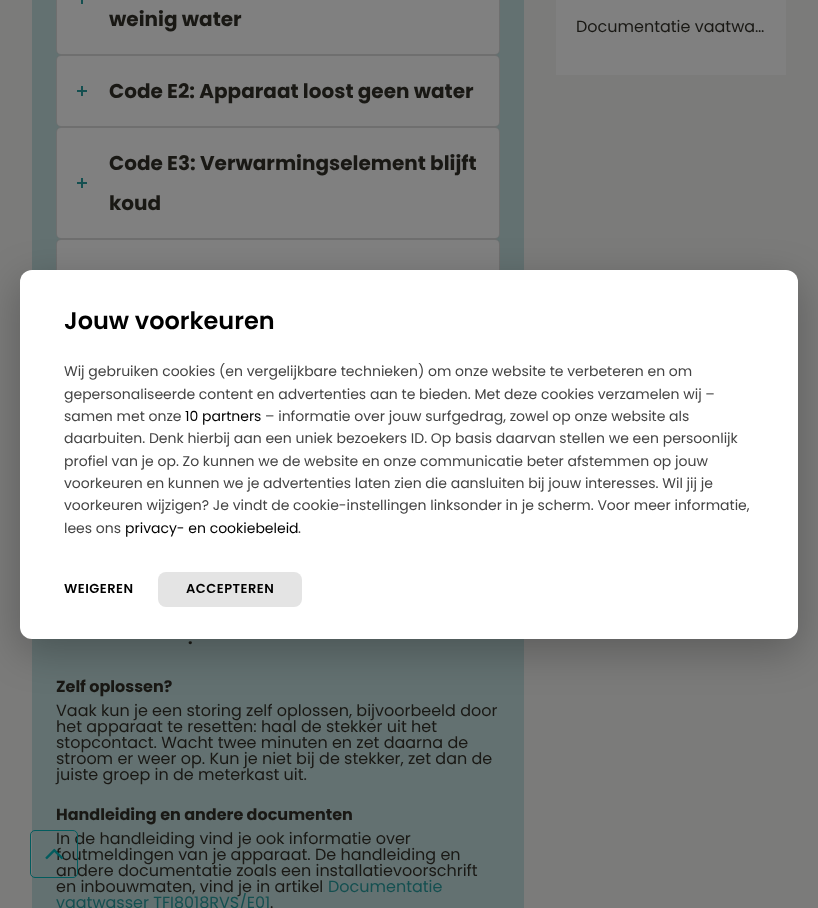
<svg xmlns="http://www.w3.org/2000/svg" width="818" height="908">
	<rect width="100%" height="100%" fill="#7B7B7A" />
	<rect x="32" y="0" width="492" height="908" fill="#637171" />
	<g font-family="Poppins" font-size="16" fill="#191814">
		<text x="56" y="844">In de handleiding vind je ook informatie over</text>
		<text x="56" y="860">foutmeldingen van je apparaat. De handleiding en</text>
		<text x="56" y="876">andere documentatie zoals een installatievoorschrift</text>
	</g>
	<rect x="30.5" y="830.5" width="47" height="47" rx="4.5" fill="none" stroke="#025C5E" />
	<image x="45" y="848" width="19" height="12" href="assets/img1.png" />
	<rect x="56.5" y="-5.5" width="443" height="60" rx="4.5" fill="none" stroke="#6F6F6F" />
	<rect x="57" y="-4" width="442" height="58" rx="4" fill="#808080" />
	<rect x="81" y="0" width="2" height="4" fill="#144F50" />
	<text x="109" y="26" font-family="Poppins" font-size="20" font-weight="700" fill="#191814">weinig water</text>
	<rect x="56.5" y="55.5" width="443" height="71" rx="4.5" fill="none" stroke="#6F6F6F" />
	<rect x="57" y="56" width="442" height="70" rx="4" fill="#808080" />
	<rect x="77" y="90" width="10" height="2" fill="#144F50" />
	<rect x="81" y="86" width="2" height="10" fill="#144F50" />
	<text x="109" y="98" font-family="Poppins" font-size="20" font-weight="700" fill="#191814">Code E2: Apparaat loost geen water</text>
	<rect x="56.5" y="127.5" width="443" height="111" rx="4.5" fill="none" stroke="#6F6F6F" />
	<rect x="57" y="128" width="442" height="110" rx="4" fill="#808080" />
	<text x="109" y="170" font-family="Poppins" font-size="20" font-weight="700" fill="#191814">Code E3: Verwarmingselement blijft</text>
	<rect x="77" y="182" width="10" height="2" fill="#144F50" />
	<rect x="81" y="178" width="2" height="10" fill="#144F50" />
	<text x="109" y="210" font-family="Poppins" font-size="20" font-weight="700" fill="#191814">koud</text>
	<rect x="56.5" y="239.5" width="443" height="71" rx="4.5" fill="none" stroke="#6F6F6F" />
	<rect x="57" y="240" width="442" height="70" rx="4" fill="#808080" />
	<g font-family="Poppins" font-size="16" font-weight="700" fill="#191814">
		<text x="188" y="644">.</text>
		<text x="56" y="692">Zelf oplossen?</text>
	</g>
	<g font-family="Poppins" font-size="16" fill="#191814">
		<text x="56" y="716">Vaak kun je een storing zelf oplossen, bijvoorbeeld door</text>
		<text x="56" y="732">het apparaat te resetten: haal de stekker uit het</text>
		<text x="56" y="748">stopcontact. Wacht twee minuten en zet daarna de</text>
		<text x="56" y="764">stroom er weer op. Kun je niet bij de stekker, zet dan de</text>
		<text x="56" y="780">juiste groep in de meterkast uit.</text>
	</g>
	<text x="56" y="820" font-family="Poppins" font-size="16" font-weight="700" fill="#191814">Handleiding en andere documenten</text>
	<text x="56" y="892" font-family="Poppins" font-size="16" fill="#191814">en inbouwmaten, vind je in artikel</text>
	<g font-family="Poppins" font-size="16" fill="#144F50">
		<text x="328" y="892">Documentatie</text>
		<text x="56" y="908">vaatwasser TFI8018RVS/E01</text>
	</g>
	<text x="270" y="908" font-family="Poppins" font-size="16" fill="#191814">.</text>
	<rect x="556" y="0" width="230" height="75" fill="#808080" />
	<text x="576" y="32" font-family="Poppins" font-size="16" fill="#191814">Documentatie vaatwa…</text>
	<rect x="20" y="282" width="778" height="369" rx="12" fill="#000000" fill-opacity="0.25" filter="blur(20px)" />
	<rect x="20" y="270" width="778" height="369" rx="12" fill="#FFFFFF" />
	<text x="64" y="329" font-family="Poppins" font-size="24" font-weight="600" fill="#000000">Jouw voorkeuren</text>
	<g font-family="Poppins" font-size="14" fill="#444444">
		<text x="64" y="376">Wij gebruiken cookies (en vergelijkbare technieken) om onze website te verbeteren en om</text>
		<text x="64" y="399">gepersonaliseerde content en advertenties aan te bieden. Met deze cookies verzamelen wij –</text>
		<text x="64" y="421">samen met onze</text>
	</g>
	<text x="185" y="421" font-family="Poppins" font-size="14" fill="#000000">10 partners</text>
	<g font-family="Poppins" font-size="14" fill="#444444">
		<text x="265" y="421">– informatie over jouw surfgedrag, zowel op onze website als</text>
		<text x="64" y="443">daarbuiten. Denk hierbij aan een uniek bezoekers ID. Op basis daarvan stellen we een persoonlijk</text>
		<text x="64" y="466">profiel van je op. Zo kunnen we de website en onze communicatie beter afstemmen op jouw</text>
		<text x="64" y="488">voorkeuren en kunnen we je advertenties laten zien die aansluiten bij jouw interesses. Wil jij je</text>
		<text x="64" y="510">voorkeuren wijzigen? Je vindt de cookie-instellingen linksonder in je scherm. Voor meer informatie,</text>
		<text x="64" y="533">lees ons</text>
	</g>
	<text x="125" y="533" font-family="Poppins" font-size="14" fill="#000000">privacy- en cookiebeleid</text>
	<text x="298" y="533" font-family="Poppins" font-size="14" fill="#444444">.</text>
	<text x="64" y="593" font-family="Poppins" font-size="13" font-weight="600" letter-spacing="0.5" fill="#000000">WEIGEREN</text>
	<rect x="158" y="572" width="144" height="35" rx="8" fill="#E4E4E4" />
	<text x="186" y="593" font-family="Poppins" font-size="13" font-weight="600" letter-spacing="0.5" fill="#000000">ACCEPTEREN</text>
</svg>
